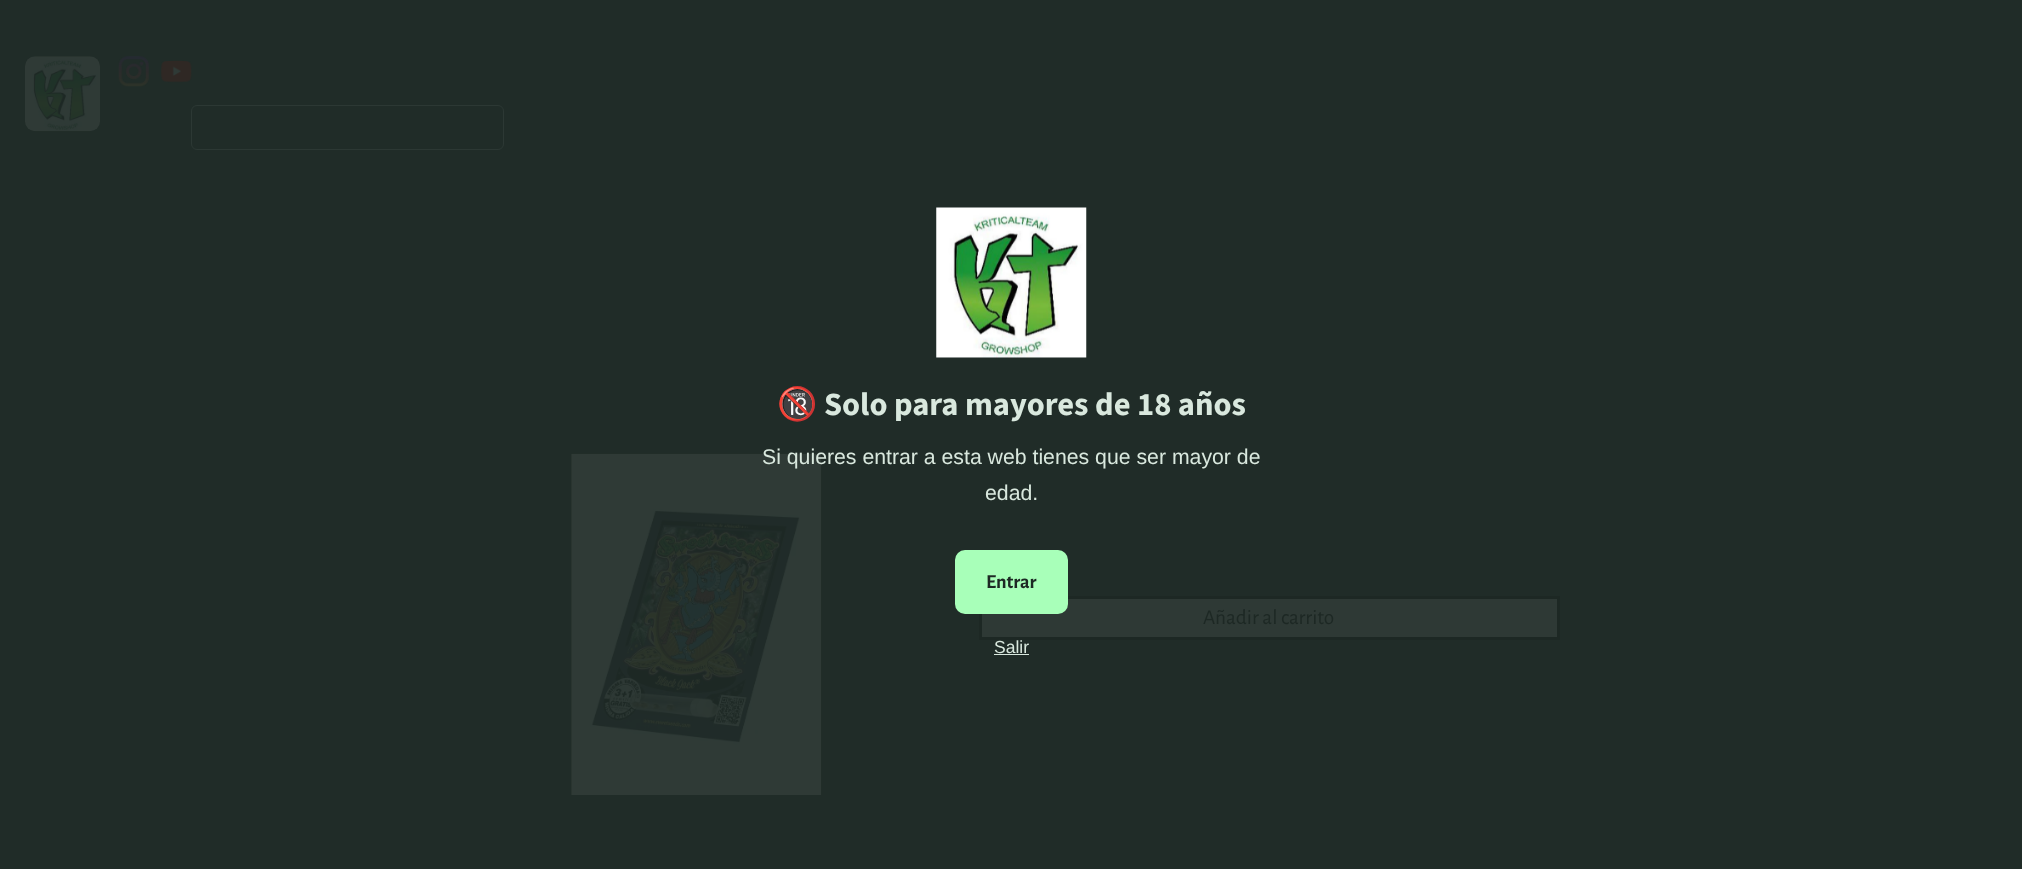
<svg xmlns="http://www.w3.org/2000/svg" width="2022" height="869">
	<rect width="100%" height="100%" fill="#202C28" />
	<image x="25" y="56" width="75" height="76" href="assets/img1.png" />
	<image x="118" y="56" width="31" height="31" href="assets/img2.png" />
	<image x="161" y="60" width="31" height="23" href="assets/img3.png" />
	<rect x="191.5" y="105.5" width="312" height="44" rx="5.5" fill="none" stroke="#2C3834" />
	<image x="936" y="207" width="151" height="151" href="assets/img4.png" />
	<text x="777" y="415" font-family="Noto Color Emoji" font-size="32.5" font-weight="700" fill="#D9E8DE">🔞</text>
	<text x="824" y="415" font-family="Source Sans Pro" font-size="32.5" font-weight="700" fill="#D9E8DE">Solo para mayores de 18 años</text>
	<image x="571" y="453" width="251" height="342" href="assets/img5.png" />
	<g font-family="Liberation Sans" font-size="21.25" fill="#D9E8DE">
		<text x="762" y="464">Si quieres entrar a esta web tienes que ser mayor de</text>
		<text x="985" y="500">edad.</text>
	</g>
	<rect x="980.5" y="597.5" width="578" height="41" fill="#2E3935" stroke="#1D2824" stroke-width="3" />
	<rect x="955" y="550" width="113" height="64" rx="10" fill="#A8FFB9" />
	<text x="986" y="588" font-family="Alegreya Sans" font-size="20" font-weight="700" fill="#1D2824">Entrar</text>
	<text x="994" y="653" font-family="Liberation Sans" font-size="17.5" fill="#D9E8DE">Salir</text>
	<rect x="994" y="654" width="35" height="1" fill="#D9E8DE" />
	<text x="1203" y="624" font-family="Alegreya Sans" font-size="21.25" fill="#1D2824">Añadir al carrito</text>
</svg>
